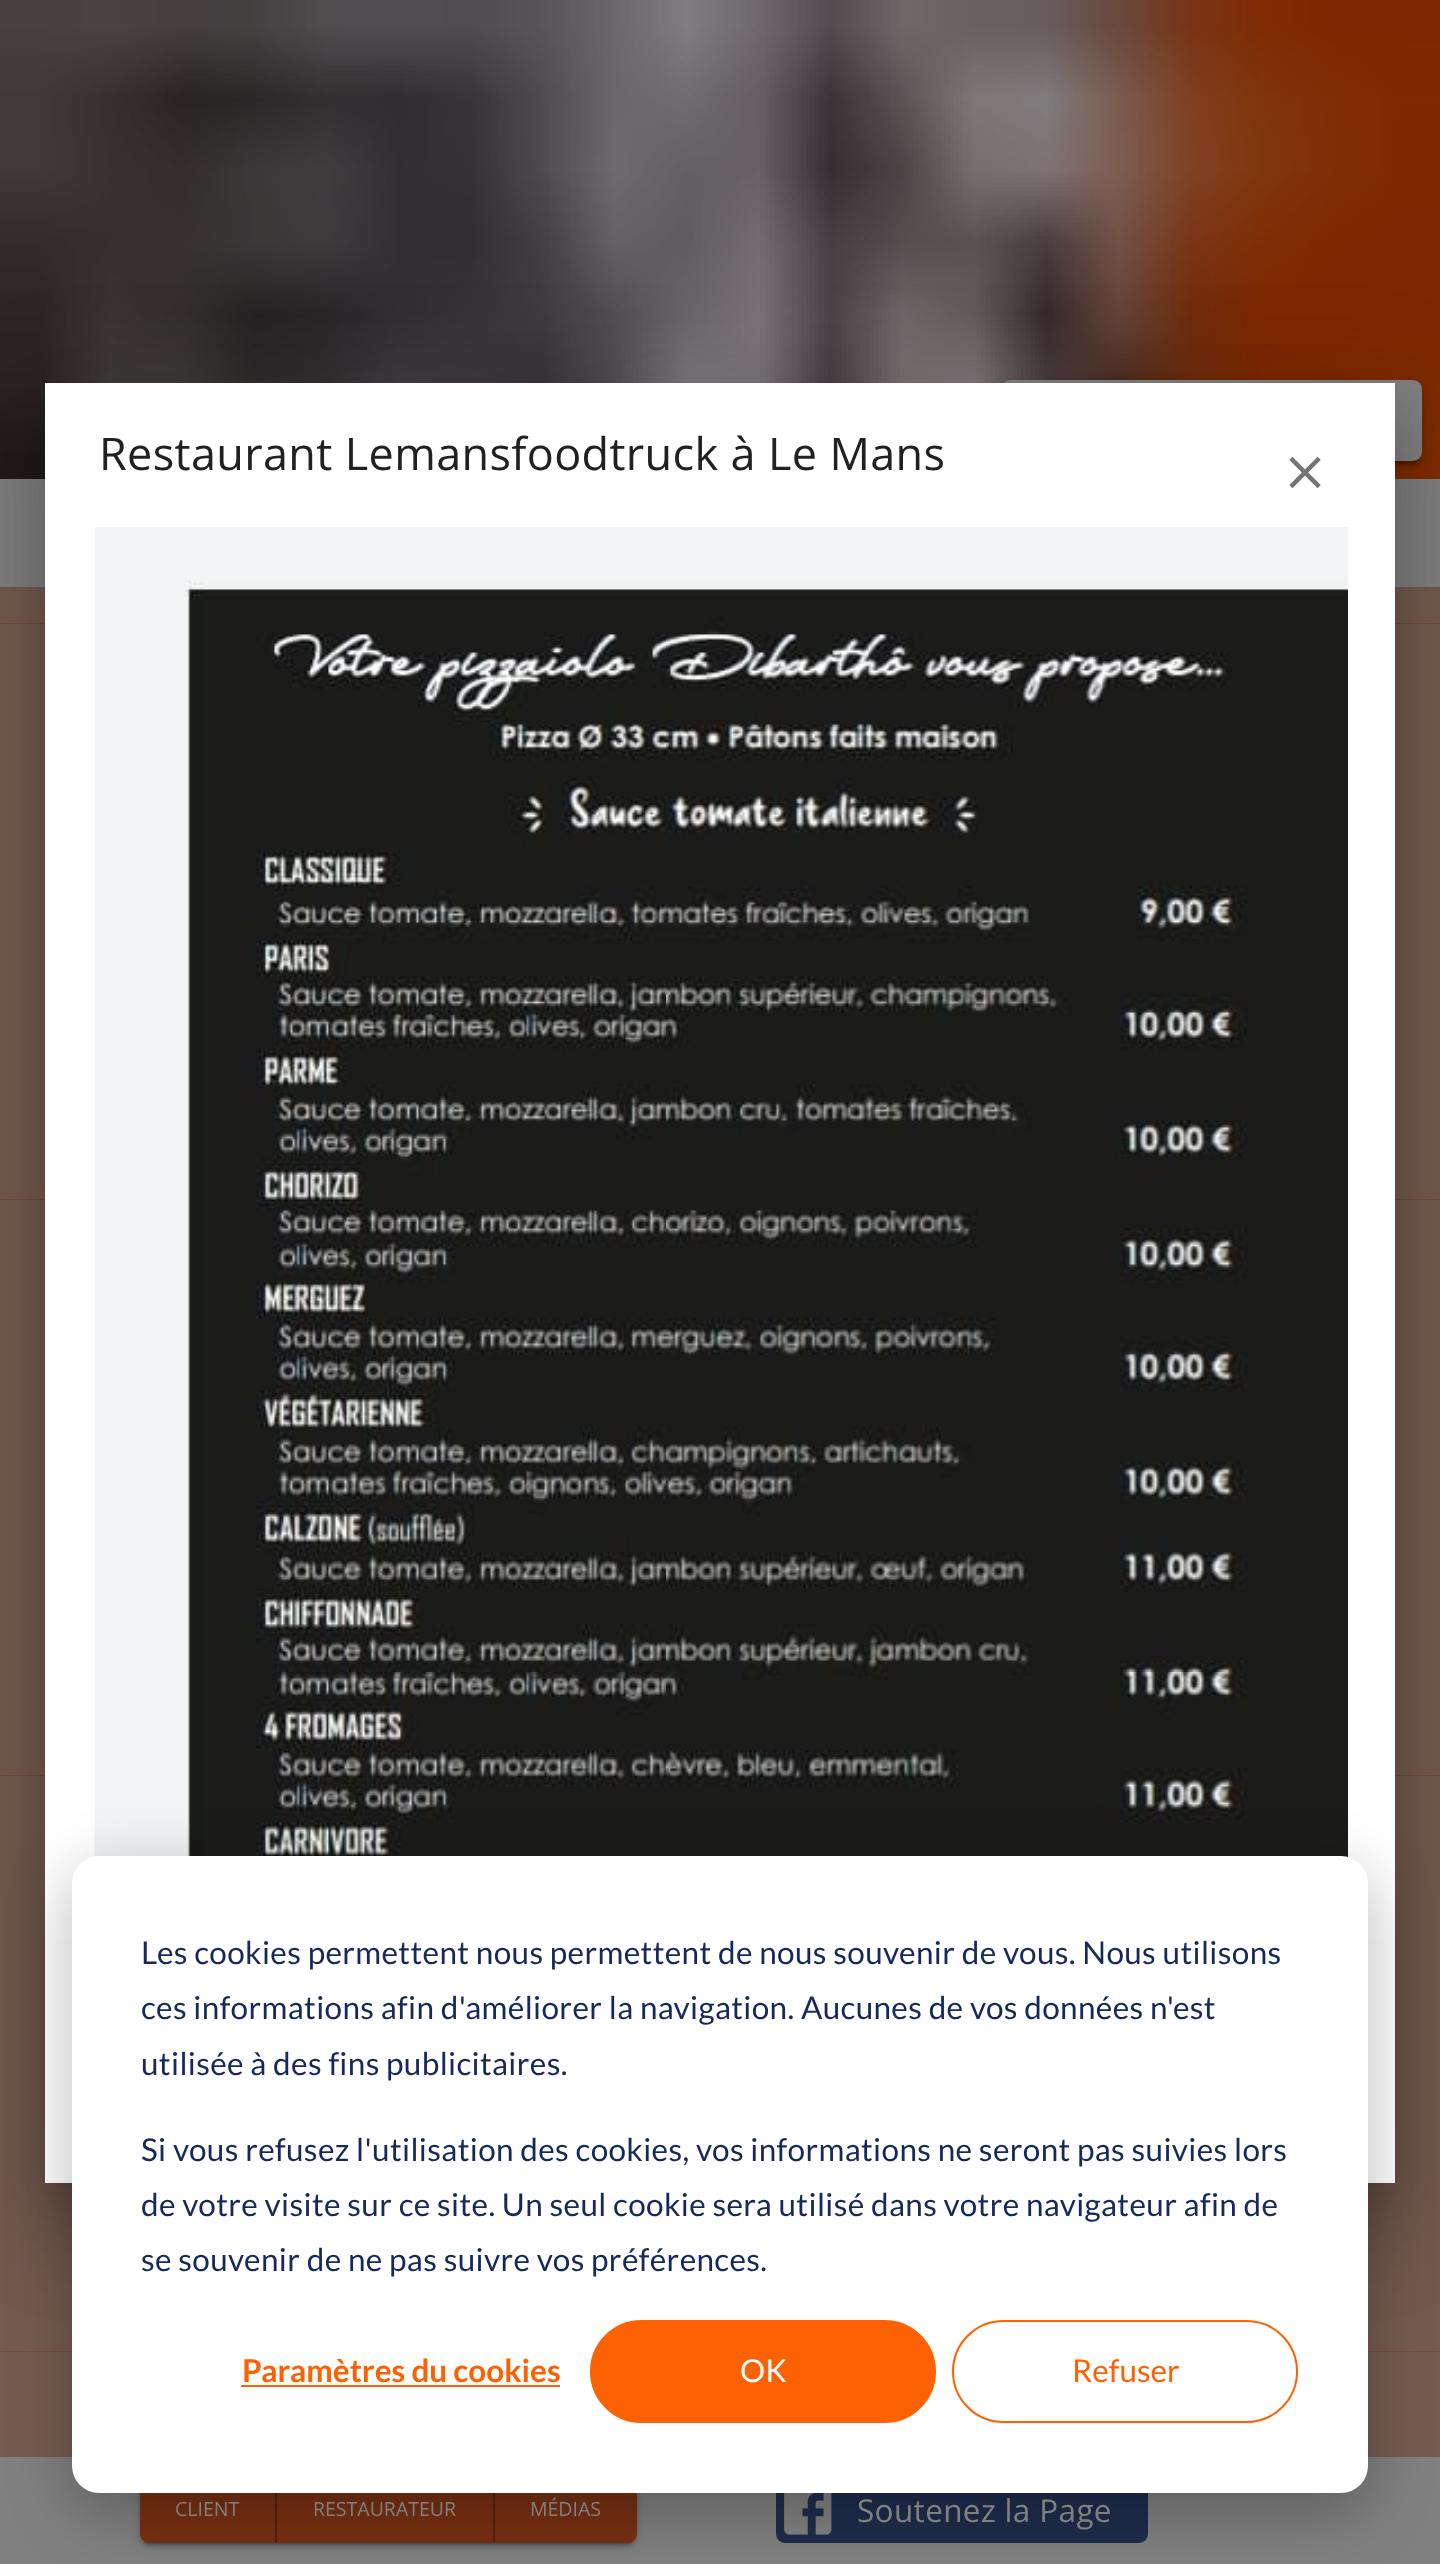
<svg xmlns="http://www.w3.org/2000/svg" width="1440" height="2564">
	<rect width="100%" height="100%" fill="#FFFFFF" />
	<image x="0" y="0" width="1440" height="479" href="assets/img3.png" />
	<rect x="1001" y="383" width="421" height="81" rx="9" fill="#000000" fill-opacity="0.12" filter="blur(5.5px)" />
	<rect x="1001" y="385" width="421" height="81" rx="9" fill="#000000" fill-opacity="0.14" filter="blur(2px)" />
	<rect x="1006" y="392" width="412" height="72" rx="5" fill="#000000" fill-opacity="0.2" filter="blur(1px)" />
	<rect x="1001" y="380" width="421" height="81" rx="9" fill="#808080" />
	<rect x="0" y="479" width="1440" height="108" fill="#808080" />
	<rect x="0" y="587" width="1440" height="36" fill="#737270" />
	<rect x="0" y="2352" width="72" height="105" fill="#755B4F" />
	<rect x="1368" y="2352" width="72" height="105" fill="#755B4F" />
	<rect x="0" y="623" width="45" height="576" fill="#755B4F" />
	<rect x="0" y="1200" width="45" height="575" fill="#755B4F" />
	<rect x="0" y="1199" width="45" height="1" fill="#764C39" />
	<rect x="0" y="1776" width="72" height="575" fill="#755B4F" />
	<rect x="0" y="2351" width="72" height="1" fill="#764C39" />
	<rect x="0" y="1775" width="45" height="1" fill="#764C39" />
	<rect x="1368" y="1776" width="72" height="575" fill="#755B4F" />
	<rect x="1368" y="2351" width="72" height="1" fill="#764C39" />
	<rect x="1395" y="1200" width="45" height="575" fill="#755B4F" />
	<rect x="1395" y="1775" width="45" height="1" fill="#764C39" />
	<rect x="1395" y="623" width="45" height="576" fill="#755B4F" />
	<rect x="1395" y="1199" width="45" height="1" fill="#764C39" />
	<rect x="0" y="587" width="45" height="37" fill="#793111" fill-opacity="0.35" />
	<rect x="1395" y="587" width="45" height="37" fill="#793111" fill-opacity="0.35" />
	<rect x="27" y="385" width="1386" height="1836" fill="#000000" fill-opacity="0.12" filter="blur(52px)" />
	<rect x="38" y="430" width="1364" height="1813" fill="#000000" fill-opacity="0.14" filter="blur(43px)" />
	<rect x="61" y="423" width="1318" height="1769" fill="#000000" fill-opacity="0.2" filter="blur(17px)" />
	<rect x="45" y="383" width="1350" height="1800" fill="#FFFFFF" />
	<text x="99" y="470" font-family="Open Sans" font-size="45" letter-spacing="0.35" fill="#212121">Restaurant Lemansfoodtruck à Le Mans</text>
	<image x="1289" y="456" width="32" height="33" href="assets/img1.png" />
	<image x="94" y="527" width="1254" height="1330" href="assets/img2.png" />
	<rect x="0" y="2457" width="1440" height="107" fill="#808080" />
	<rect x="140" y="2482" width="497" height="63" rx="9" fill="#000000" fill-opacity="0.12" filter="blur(5.5px)" />
	<rect x="140" y="2484" width="497" height="63" rx="9" fill="#000000" fill-opacity="0.14" filter="blur(2px)" />
	<rect x="144" y="2491" width="488" height="54" rx="5" fill="#000000" fill-opacity="0.2" filter="blur(1px)" />
	<path d="M149 2480H277V2543H149C144 2543 140 2539 140 2534V2489C140 2484 144 2480 149 2480Z" fill="#783012" />
	<rect x="275" y="2493" width="2" height="50" fill="#54220C" />
	<rect x="277" y="2493" width="216" height="50" fill="#783012" />
	<rect x="493" y="2493" width="2" height="50" fill="#54220C" />
	<path d="M495 2480H628C633 2480 637 2484 637 2489V2534C637 2539 633 2543 628 2543H495Z" fill="#783012" />
	<rect x="776" y="2480" width="372" height="63" rx="9" fill="#1E2D4C" />
	<image x="784" y="2493" width="48" height="42" href="assets/img4.png" />
	<rect x="72" y="1874" width="1296" height="637" rx="27" fill="#000000" fill-opacity="0.28" filter="blur(31.5px)" />
	<rect x="72" y="1856" width="1296" height="637" rx="27" fill="#FFFFFF" />
	<g font-family="Lato" font-size="31.5" letter-spacing="0.35" fill="#15295A">
		<text x="141" y="1964">Les cookies permettent nous permettent de nous souvenir de vous. Nous utilisons</text>
		<text x="141" y="2019">ces informations afin d'améliorer la navigation. Aucunes de vos données n'est</text>
		<text x="141" y="2075">utilisée à des fins publicitaires.</text>
		<text x="141" y="2161">Si vous refusez l'utilisation des cookies, vos informations ne seront pas suivies lors</text>
		<text x="141" y="2216">de votre visite sur ce site. Un seul cookie sera utilisé dans votre navigateur afin de</text>
		<text x="141" y="2271">se souvenir de ne pas suivre vos préférences.</text>
	</g>
	<text x="242" y="2382" font-family="Lato" font-size="31.5" font-weight="700" fill="#FC6203">Paramètres du cookies</text>
	<rect x="241" y="2385" width="319" height="2" fill="#FC6203" />
	<rect x="591" y="2321" width="344" height="101" rx="50.5" fill="#FC6203" stroke="#FC6203" stroke-width="2" />
	<text x="740" y="2382" font-family="Lato" font-size="31.5" fill="#FFFFFF">OK</text>
	<rect x="953" y="2321" width="344" height="101" rx="50.5" fill="none" stroke="#FC6203" stroke-width="2" />
	<text x="1072" y="2382" font-family="Lato" font-size="31.5" fill="#FC6203">Refuser</text>
	<g font-family="Open Sans" font-size="19.5" fill="#808080">
		<text x="175" y="2516">CLIENT</text>
		<text x="313" y="2516">RESTAURATEUR</text>
		<text x="530" y="2516">MÉDIAS</text>
	</g>
	<text x="857" y="2522" font-family="Open Sans" font-size="31.5" letter-spacing="0.35" fill="#808080">Soutenez la Page</text>
</svg>
